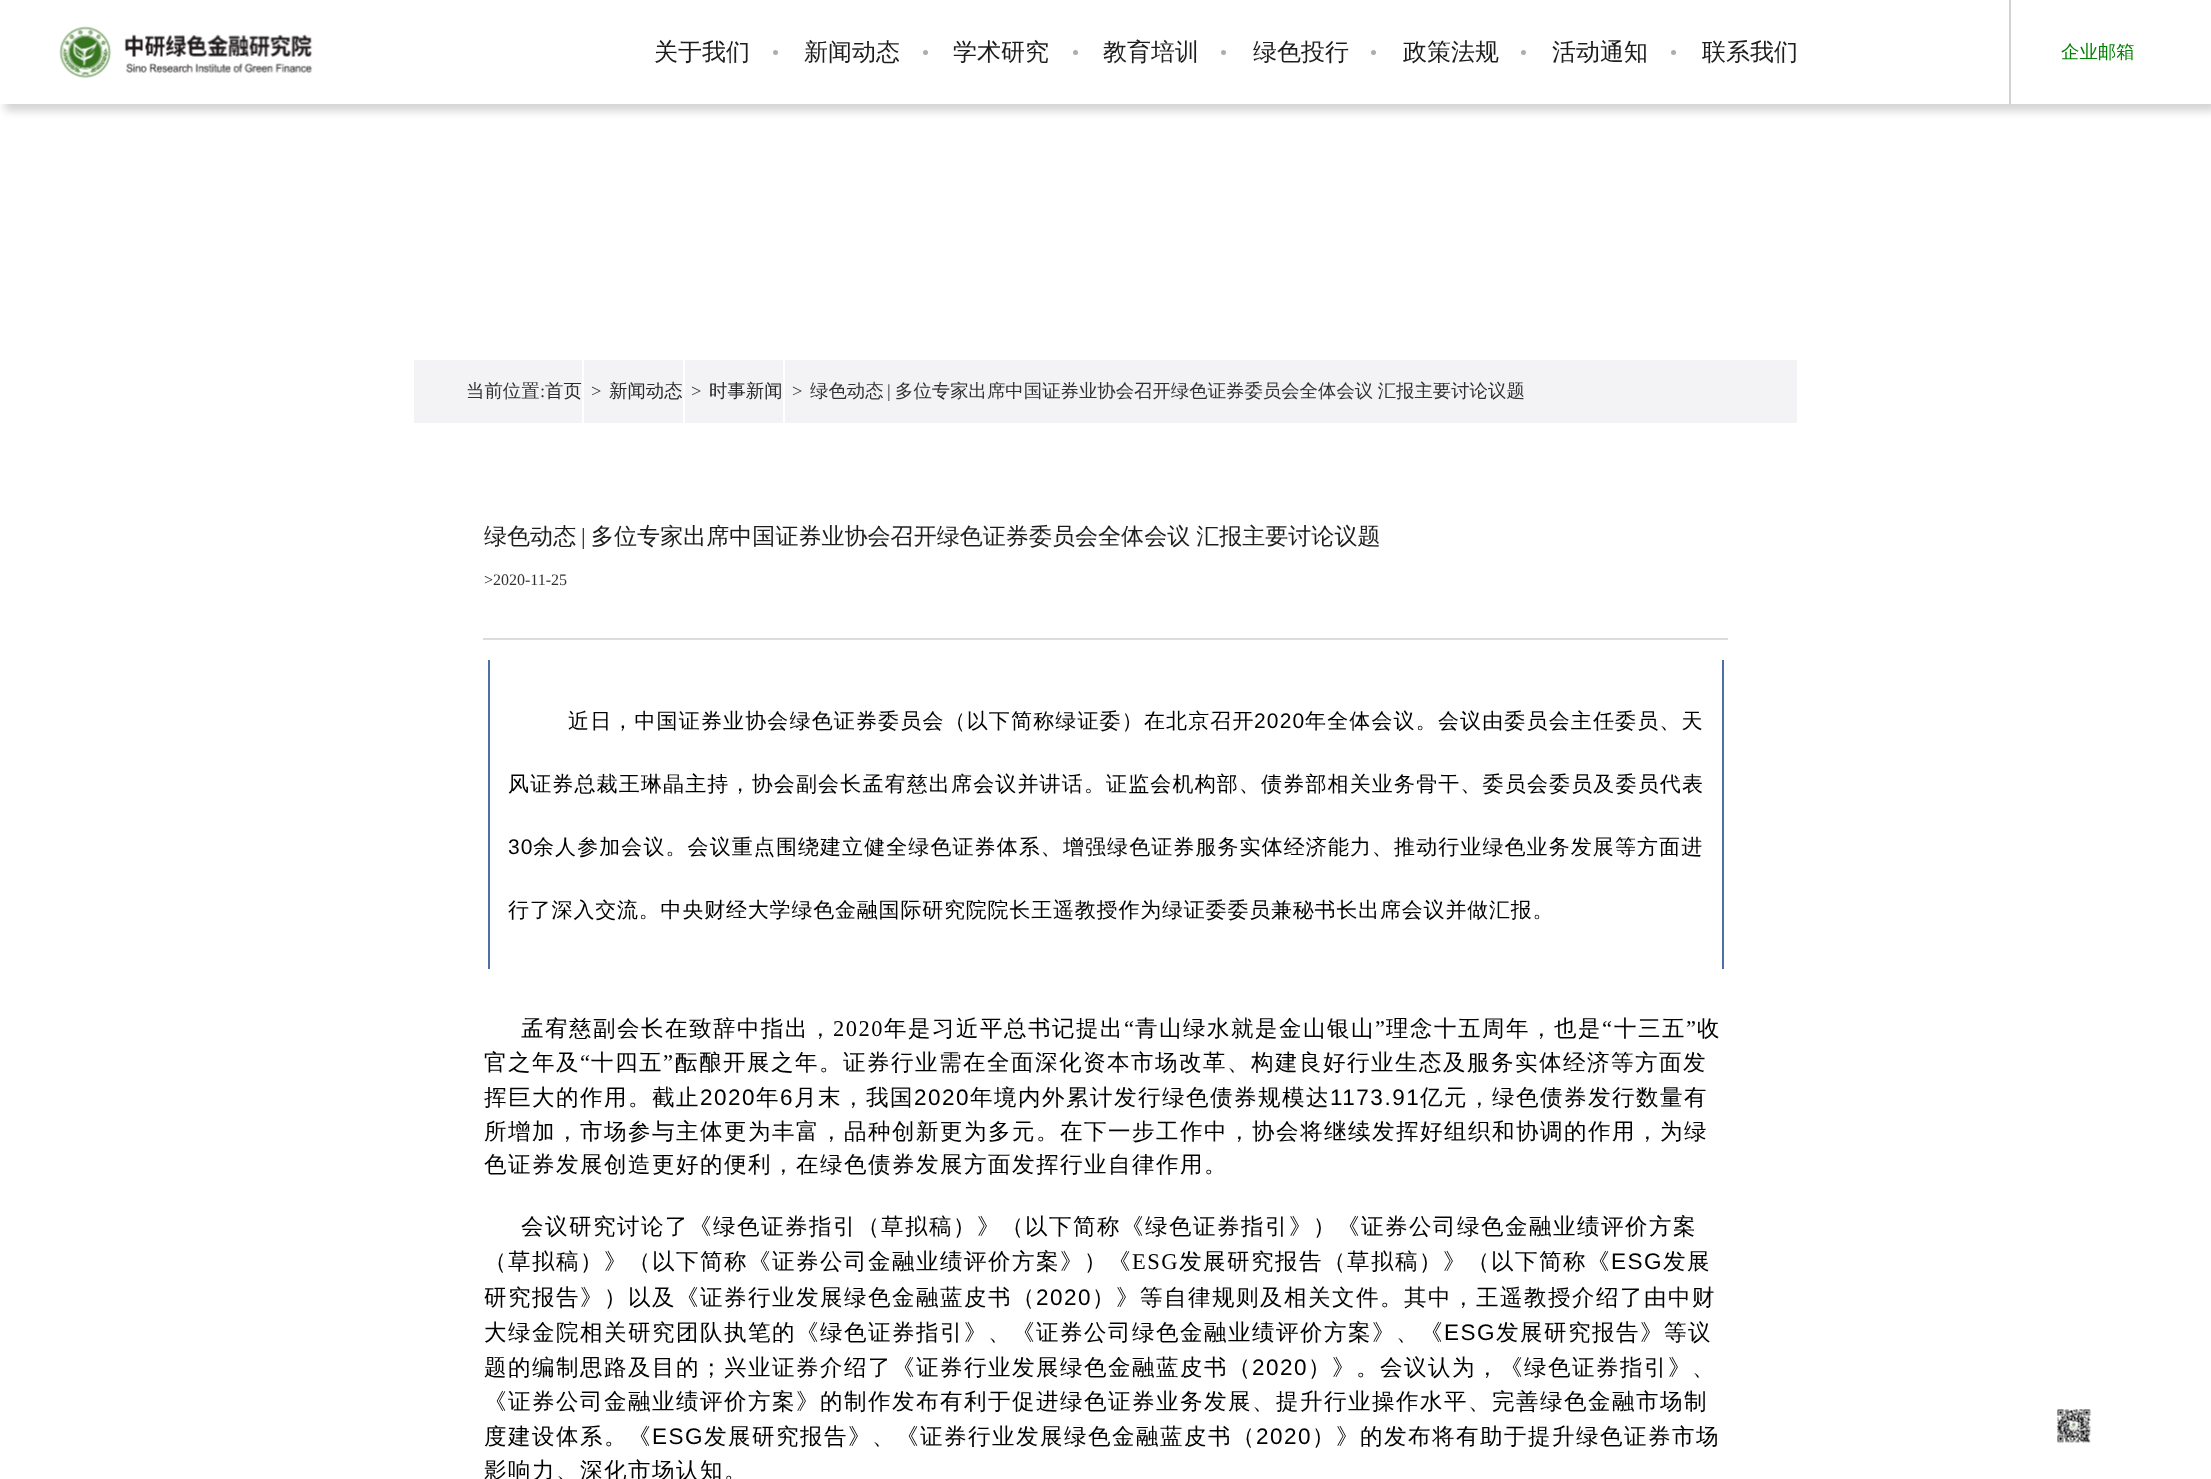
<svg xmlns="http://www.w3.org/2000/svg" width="2211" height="1479">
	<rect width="100%" height="100%" fill="#FFFFFF" />
	<rect x="5" y="8" width="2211" height="103" fill="#070002" fill-opacity="0.17" filter="blur(4.5px)" />
	<rect x="0" y="1" width="2211" height="103" fill="#FFFFFF" />
	<image x="59" y="26" width="254" height="52" href="assets/img1.png" />
	<text x="654" y="60" font-family="WenQuanYi Zen Hei" font-size="24" font-weight="500" fill="#1C1C1C">关于我们</text>
	<circle cx="775.5" cy="52.5" r="2.5" fill="#ADADAD" />
	<text x="804" y="60" font-family="WenQuanYi Zen Hei" font-size="24" font-weight="500" fill="#1C1C1C">新闻动态</text>
	<circle cx="925.5" cy="52.5" r="2.5" fill="#ADADAD" />
	<text x="953" y="60" font-family="WenQuanYi Zen Hei" font-size="24" font-weight="500" fill="#1C1C1C">学术研究</text>
	<circle cx="1075.5" cy="52.5" r="2.5" fill="#ADADAD" />
	<text x="1103" y="60" font-family="WenQuanYi Zen Hei" font-size="24" font-weight="500" fill="#1C1C1C">教育培训</text>
	<circle cx="1223.5" cy="52.5" r="2.5" fill="#ADADAD" />
	<text x="1253" y="60" font-family="WenQuanYi Zen Hei" font-size="24" font-weight="500" fill="#1C1C1C">绿色投行</text>
	<circle cx="1373.5" cy="52.5" r="2.5" fill="#ADADAD" />
	<text x="1403" y="60" font-family="WenQuanYi Zen Hei" font-size="24" font-weight="500" fill="#1C1C1C">政策法规</text>
	<circle cx="1523.5" cy="52.5" r="2.5" fill="#ADADAD" />
	<text x="1552" y="60" font-family="WenQuanYi Zen Hei" font-size="24" font-weight="500" fill="#1C1C1C">活动通知</text>
	<circle cx="1673.5" cy="52.5" r="2.5" fill="#ADADAD" />
	<text x="1702" y="60" font-family="WenQuanYi Zen Hei" font-size="24" font-weight="500" fill="#1C1C1C">联系我们</text>
	<rect x="2009" y="0" width="2" height="104" fill="#D2D2D2" />
	<text x="2061" y="58" font-family="WenQuanYi Zen Hei" font-size="18.4" font-weight="500" fill="#008000">企业邮箱</text>
	<rect x="414" y="360" width="1383" height="63" fill="#F3F3F5" />
	<text x="466" y="397" font-family="WenQuanYi Zen Hei" font-size="18.4" font-weight="500" fill="#313030">当前位置</text>
	<text x="540" y="397" font-family="Liberation Serif" font-size="18.4" fill="#313030">:</text>
	<rect x="582" y="360" width="2" height="63" fill="#FFFFFF" />
	<text x="545" y="397" font-family="WenQuanYi Zen Hei" font-size="18.4" font-weight="500" fill="#282828">首页</text>
	<text x="591" y="397" font-family="Liberation Serif" font-size="18.4" fill="#313030">&gt;</text>
	<rect x="683" y="360" width="2" height="63" fill="#FFFFFF" />
	<text x="609" y="397" font-family="WenQuanYi Zen Hei" font-size="18.4" font-weight="500" fill="#282828">新闻动态</text>
	<text x="691" y="397" font-family="Liberation Serif" font-size="18.4" fill="#313030">&gt;</text>
	<rect x="783" y="360" width="2" height="63" fill="#FFFFFF" />
	<text x="709" y="397" font-family="WenQuanYi Zen Hei" font-size="18.4" font-weight="500" fill="#282828">时事新闻</text>
	<text x="792" y="397" font-family="Liberation Serif" font-size="18.4" fill="#313030">&gt;</text>
	<text x="810" y="397" font-family="WenQuanYi Zen Hei" font-size="18.4" font-weight="500" fill="#313030">绿色动态</text>
	<text x="887" y="397" font-family="Liberation Serif" font-size="18.4" fill="#313030">|</text>
	<text x="895" y="397" word-spacing="-1" font-family="WenQuanYi Zen Hei" font-size="18.4" font-weight="500" fill="#313030">多位专家出席中国证券业协会召开绿色证券委员会全体会议 汇报主要讨论议题</text>
	<rect x="483" y="638" width="1245" height="2" fill="#DCDCDC" />
	<text x="484" y="544" font-family="WenQuanYi Zen Hei" font-size="23.05" font-weight="500" fill="#1C1C1C">绿色动态</text>
	<text x="581" y="544" font-family="Liberation Serif" font-size="23.05" fill="#1C1C1C">|</text>
	<text x="591" y="544" word-spacing="-1" font-family="WenQuanYi Zen Hei" font-size="23.05" font-weight="500" fill="#1C1C1C">多位专家出席中国证券业协会召开绿色证券委员会全体会议 汇报主要讨论议题</text>
	<text x="484" y="585" font-family="Liberation Serif" font-size="16" fill="#313030">&gt;2020-11-25</text>
	<rect x="1722" y="660" width="2" height="309" fill="#4F70A6" />
	<rect x="488" y="660" width="2" height="309" fill="#4F70A6" />
	<text x="568" y="728" font-family="WenQuanYi Zen Hei" font-size="21" font-weight="500" letter-spacing="1.15" fill="#000000">近日，中国证券业协会绿色证券委员会（以下简称绿证委）在北京召开</text>
	<text x="1254" y="728" font-family="Liberation Sans" font-size="21" letter-spacing="1.15" fill="#000000">2020</text>
	<g font-family="WenQuanYi Zen Hei" font-size="21" font-weight="500" letter-spacing="1.15" fill="#000000">
		<text x="1305" y="728">年全体会议。会议由委员会主任委员、天</text>
		<text x="508" y="791">风证券总裁王琳晶主持，协会副会长孟宥慈出席会议并讲话。证监会机构部、债券部相关业务骨干、委员会委员及委员代表</text>
	</g>
	<text x="508" y="854" font-family="Liberation Sans" font-size="21" letter-spacing="1.08" fill="#000000">30</text>
	<text x="533" y="854" font-family="WenQuanYi Zen Hei" font-size="21" font-weight="500" letter-spacing="1.08" fill="#000000">余人参加会议。会议重点围绕建立健全绿色证券体系、增强绿色证券服务实体经济能力、推动行业绿色业务发展等方面进</text>
	<text x="508" y="917" font-family="WenQuanYi Zen Hei" font-size="21" font-weight="500" letter-spacing="0.8" fill="#000000">行了深入交流。中央财经大学绿色金融国际研究院院长王遥教授作为绿证委委员兼秘书长出席会议并做汇报。</text>
	<text x="521" y="1036" font-family="WenQuanYi Zen Hei" font-size="22.5" font-weight="500" letter-spacing="1.5" fill="#000000">孟宥慈副会长在致辞中指出，</text>
	<text x="833" y="1036" font-family="Liberation Serif" font-size="22.5" letter-spacing="1.5" fill="#000000">2020</text>
	<text x="884" y="1036" font-family="WenQuanYi Zen Hei" font-size="22.5" font-weight="500" letter-spacing="1.5" fill="#000000">年是习近平总书记提出</text>
	<text x="1124" y="1036" font-family="Liberation Serif" font-size="22.5" letter-spacing="1.5" fill="#000000">“</text>
	<text x="1135" y="1036" font-family="WenQuanYi Zen Hei" font-size="22.5" font-weight="500" letter-spacing="1.5" fill="#000000">青山绿水就是金山银山</text>
	<text x="1375" y="1036" font-family="Liberation Serif" font-size="22.5" letter-spacing="1.5" fill="#000000">”</text>
	<text x="1386" y="1036" font-family="WenQuanYi Zen Hei" font-size="22.5" font-weight="500" letter-spacing="1.5" fill="#000000">理念十五周年，也是</text>
	<text x="1602" y="1036" font-family="Liberation Serif" font-size="22.5" letter-spacing="1.5" fill="#000000">“</text>
	<text x="1614" y="1036" font-family="WenQuanYi Zen Hei" font-size="22.5" font-weight="500" letter-spacing="1.5" fill="#000000">十三五</text>
	<text x="1686" y="1036" font-family="Liberation Serif" font-size="22.5" letter-spacing="1.5" fill="#000000">”</text>
	<g font-family="WenQuanYi Zen Hei" font-size="22.5" font-weight="500" letter-spacing="1.5" fill="#000000">
		<text x="1697" y="1036">收</text>
		<text x="484" y="1070">官之年及</text>
	</g>
	<text x="580" y="1070" font-family="Liberation Serif" font-size="22.5" letter-spacing="1.5" fill="#000000">“</text>
	<text x="591" y="1070" font-family="WenQuanYi Zen Hei" font-size="22.5" font-weight="500" letter-spacing="1.5" fill="#000000">十四五</text>
	<text x="663" y="1070" font-family="Liberation Serif" font-size="22.5" letter-spacing="1.5" fill="#000000">”</text>
	<g font-family="WenQuanYi Zen Hei" font-size="22.5" font-weight="500" letter-spacing="1.5" fill="#000000">
		<text x="675" y="1070">酝酿开展之年。证券行业需在全面深化资本市场改革、构建良好行业生态及服务实体经济等方面发</text>
		<text x="484" y="1105">挥巨大的作用。截止</text>
	</g>
	<text x="700" y="1105" font-family="Liberation Sans" font-size="22.5" letter-spacing="1.5" fill="#000000">2020</text>
	<text x="756" y="1105" font-family="WenQuanYi Zen Hei" font-size="22.5" font-weight="500" letter-spacing="1.5" fill="#000000">年</text>
	<text x="780" y="1105" font-family="Liberation Sans" font-size="22.5" letter-spacing="1.5" fill="#000000">6</text>
	<text x="794" y="1105" font-family="WenQuanYi Zen Hei" font-size="22.5" font-weight="500" letter-spacing="1.5" fill="#000000">月末，我国</text>
	<text x="914" y="1105" font-family="Liberation Sans" font-size="22.5" letter-spacing="1.5" fill="#000000">2020</text>
	<text x="970" y="1105" font-family="WenQuanYi Zen Hei" font-size="22.5" font-weight="500" letter-spacing="1.5" fill="#000000">年境内外累计发行绿色债券规模达</text>
	<text x="1330" y="1105" font-family="Liberation Sans" font-size="22.5" letter-spacing="1.5" fill="#000000">1173.91</text>
	<g font-family="WenQuanYi Zen Hei" font-size="22.5" font-weight="500" letter-spacing="1.5" fill="#000000">
		<text x="1420" y="1105">亿元，绿色债券发行数量有</text>
		<text x="484" y="1139">所增加，市场参与主体更为丰富，品种创新更为多元。在下一步工作中，协会将继续发挥好组织和协调的作用，为绿</text>
		<text x="484" y="1172">色证券发展创造更好的便利，在绿色债券发展方面发挥行业自律作用。</text>
		<text x="521" y="1234">会议研究讨论了《绿色证券指引（草拟稿）》（以下简称《绿色证券指引》）《证券公司绿色金融业绩评价方案</text>
		<text x="484" y="1269">（草拟稿）》（以下简称《证券公司金融业绩评价方案》）《</text>
	</g>
	<text x="1132" y="1269" font-family="Liberation Serif" font-size="22.5" letter-spacing="1.5" fill="#000000">ESG</text>
	<text x="1179" y="1269" font-family="WenQuanYi Zen Hei" font-size="22.5" font-weight="500" letter-spacing="1.5" fill="#000000">发展研究报告（草拟稿）》（以下简称《</text>
	<text x="1611" y="1269" font-family="Liberation Sans" font-size="22.5" letter-spacing="1.5" fill="#000000">ESG</text>
	<g font-family="WenQuanYi Zen Hei" font-size="22.5" font-weight="500" letter-spacing="1.5" fill="#000000">
		<text x="1663" y="1269">发展</text>
		<text x="484" y="1305">研究报告》）以及《证券行业发展绿色金融蓝皮书（</text>
	</g>
	<text x="1036" y="1305" font-family="Liberation Sans" font-size="22.5" letter-spacing="1.5" fill="#000000">2020</text>
	<g font-family="WenQuanYi Zen Hei" font-size="22.5" font-weight="500" letter-spacing="1.5" fill="#000000">
		<text x="1092" y="1305">）》等自律规则及相关文件。其中，王遥教授介绍了由中财</text>
		<text x="484" y="1340">大绿金院相关研究团队执笔的《绿色证券指引》、《证券公司绿色金融业绩评价方案》、《</text>
	</g>
	<text x="1444" y="1340" font-family="Liberation Sans" font-size="22.5" letter-spacing="1.5" fill="#000000">ESG</text>
	<g font-family="WenQuanYi Zen Hei" font-size="22.5" font-weight="500" letter-spacing="1.5" fill="#000000">
		<text x="1496" y="1340">发展研究报告》等议</text>
		<text x="484" y="1375">题的编制思路及目的；兴业证券介绍了《证券行业发展绿色金融蓝皮书（</text>
	</g>
	<text x="1252" y="1375" font-family="Liberation Sans" font-size="22.5" letter-spacing="1.5" fill="#000000">2020</text>
	<g font-family="WenQuanYi Zen Hei" font-size="22.5" font-weight="500" letter-spacing="1.5" fill="#000000">
		<text x="1308" y="1375">）》。会议认为，《绿色证券指引》、</text>
		<text x="484" y="1409">《证券公司金融业绩评价方案》的制作发布有利于促进绿色证券业务发展、提升行业操作水平、完善绿色金融市场制</text>
		<text x="484" y="1444">度建设体系。《</text>
	</g>
	<text x="652" y="1444" font-family="Liberation Sans" font-size="22.5" letter-spacing="1.5" fill="#000000">ESG</text>
	<text x="704" y="1444" font-family="WenQuanYi Zen Hei" font-size="22.5" font-weight="500" letter-spacing="1.5" fill="#000000">发展研究报告》、《证券行业发展绿色金融蓝皮书（</text>
	<text x="1256" y="1444" font-family="Liberation Sans" font-size="22.5" letter-spacing="1.5" fill="#000000">2020</text>
	<g font-family="WenQuanYi Zen Hei" font-size="22.5" font-weight="500" letter-spacing="1.5" fill="#000000">
		<text x="1312" y="1444">）》的发布将有助于提升绿色证券市场</text>
		<text x="484" y="1478">影响力、深化市场认知。</text>
	</g>
	<image x="2057" y="1409" width="34" height="34" href="assets/img2.png" />
</svg>
